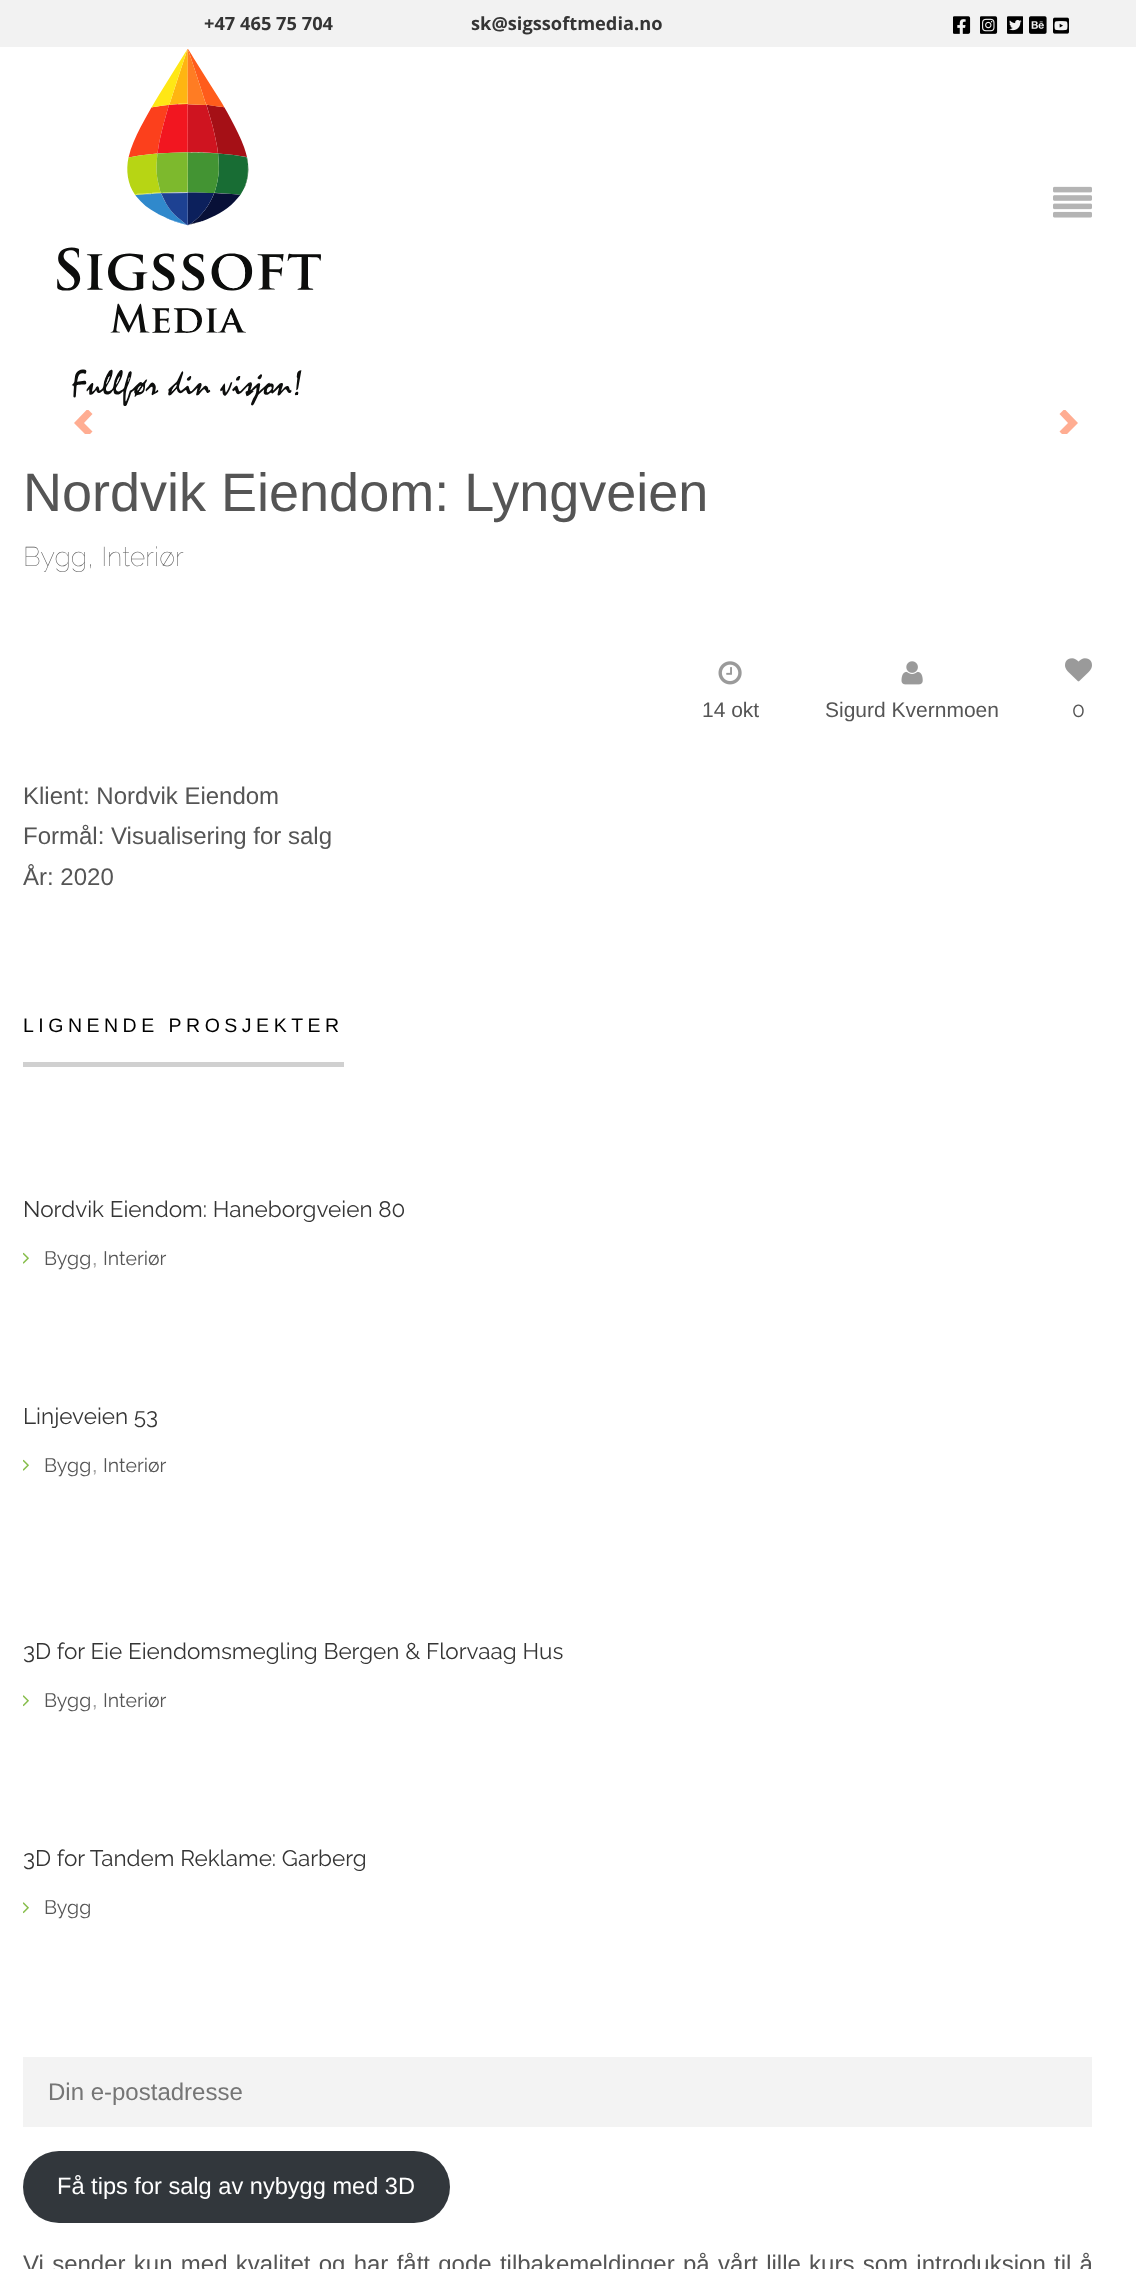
<svg xmlns="http://www.w3.org/2000/svg" width="1136" height="2269">
	<defs>
		<clipPath id="clip1"><rect x="0" y="410" width="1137" height="24" /></clipPath>
	</defs>
	<rect width="100%" height="100%" fill="#FFFFFF" />
	<rect x="0" y="0" width="1136" height="47" fill="#F2F2F2" />
	<g font-family="Open Sans" font-size="18.25" font-weight="700" fill="#353535">
		<text x="204" y="30">+47 465 75 704</text>
		<text x="471" y="30">sk@sigssoftmedia.no</text>
	</g>
	<image x="953" y="16" width="18" height="18" href="assets/img1.png" />
	<image x="980" y="16" width="18" height="18" href="assets/img2.png" />
	<image x="1007" y="16" width="16" height="18" href="assets/img3.png" />
	<image x="1029" y="16" width="18" height="18" href="assets/img4.png" />
	<image x="1053" y="17" width="16" height="17" href="assets/img5.png" />
	<image x="57" y="49" width="264" height="357" href="assets/img6.png" />
	<image x="1053" y="186" width="39" height="32" href="assets/img7.png" />
	<g clip-path="url(#clip1)">
		<path d="M92.5 414L84 423L92.5 431.5L87.5 436.5L74 423L87.5 409Z" fill="#FFAD92" />
		<path d="M1078 423L1064.5 436.5L1059.5 431.5L1068 423L1059.5 414L1064.5 409Z" fill="#FFAD92" />
	</g>
	<text x="23" y="511" font-family="Liberation Sans" font-size="54" fill="#555555">Nordvik Eiendom: Lyngveien</text>
	<text x="23" y="566" font-family="Raleway" font-size="27" font-weight="100" fill="#555555">Bygg, Interiør</text>
	<image x="718" y="661" width="24" height="24" href="assets/img8.png" />
	<text x="702" y="717" font-family="Liberation Sans" font-size="21" fill="#555555">14 okt</text>
	<image x="901" y="661" width="22" height="24" href="assets/img9.png" />
	<text x="825" y="717" font-family="Liberation Sans" font-size="21" fill="#555555">Sigurd Kvernmoen</text>
	<image x="1065" y="658" width="27" height="24" href="assets/img10.png" />
	<text x="1072" y="717" font-family="Raleway" font-size="21" fill="#555555">0</text>
	<g font-family="Liberation Sans" font-size="24" fill="#555555">
		<text x="23" y="804">Klient: Nordvik Eiendom</text>
		<text x="23" y="844">Formål: Visualisering for salg</text>
		<text x="23" y="885">År: 2020</text>
	</g>
	<rect x="23" y="1062" width="321" height="5" fill="#D0D0D0" />
	<text x="23" y="1032" font-family="Liberation Sans" font-size="19.5" letter-spacing="4.5" fill="#000000">LIGNENDE PROSJEKTER</text>
	<text x="23" y="1217" font-family="Raleway" font-size="22.5" fill="#353535">Nordvik Eiendom: Haneborgveien 80</text>
	<image x="23" y="1252" width="6" height="12" href="assets/img11.png" />
	<g font-family="Raleway" font-size="19.5" fill="#555555">
		<text x="44" y="1265">Bygg</text>
		<text x="103" y="1265">Interiør</text>
	</g>
	<text x="92" y="1265" font-family="Liberation Sans" font-size="19.5" fill="#A2A2A2">,</text>
	<text x="23" y="1424" font-family="Raleway" font-size="22.5" fill="#353535">Linjeveien 53</text>
	<image x="23" y="1459" width="6" height="12" href="assets/img11.png" />
	<g font-family="Raleway" font-size="19.5" fill="#555555">
		<text x="44" y="1472">Bygg</text>
		<text x="103" y="1472">Interiør</text>
	</g>
	<text x="92" y="1472" font-family="Liberation Sans" font-size="19.5" fill="#A2A2A2">,</text>
	<text x="23" y="1659" font-family="Raleway" font-size="22.5" fill="#353535">3D for Eie Eiendomsmegling Bergen &amp; Florvaag Hus</text>
	<image x="23" y="1695" width="6" height="12" href="assets/img12.png" />
	<text x="44" y="1707" font-family="Raleway" font-size="19.5" fill="#555555">Bygg</text>
	<text x="92" y="1707" font-family="Liberation Sans" font-size="19.5" fill="#A2A2A2">,</text>
	<text x="103" y="1707" font-family="Raleway" font-size="19.5" fill="#555555">Interiør</text>
	<text x="23" y="1866" font-family="Raleway" font-size="22.5" fill="#353535">3D for Tandem Reklame: Garberg</text>
	<image x="23" y="1902" width="6" height="12" href="assets/img12.png" />
	<text x="44" y="1914" font-family="Raleway" font-size="19.5" fill="#555555">Bygg</text>
	<rect x="23" y="2057" width="1069" height="70" fill="#F3F3F3" />
	<text x="48" y="2100" font-family="Liberation Sans" font-size="24" fill="#757575">Din e-postadresse</text>
	<rect x="23" y="2151" width="427" height="72" rx="36" fill="#32373C" />
	<text x="57" y="2194" font-family="Liberation Sans" font-size="23.6" fill="#FFFFFF">Få tips for salg av nybygg med 3D</text>
	<text x="23" y="2272" word-spacing="1.6" font-family="Liberation Sans" font-size="24" fill="#555555">Vi sender kun med kvalitet og har fått gode tilbakemeldinger på vårt lille kurs som introduksjon til å</text>
</svg>
